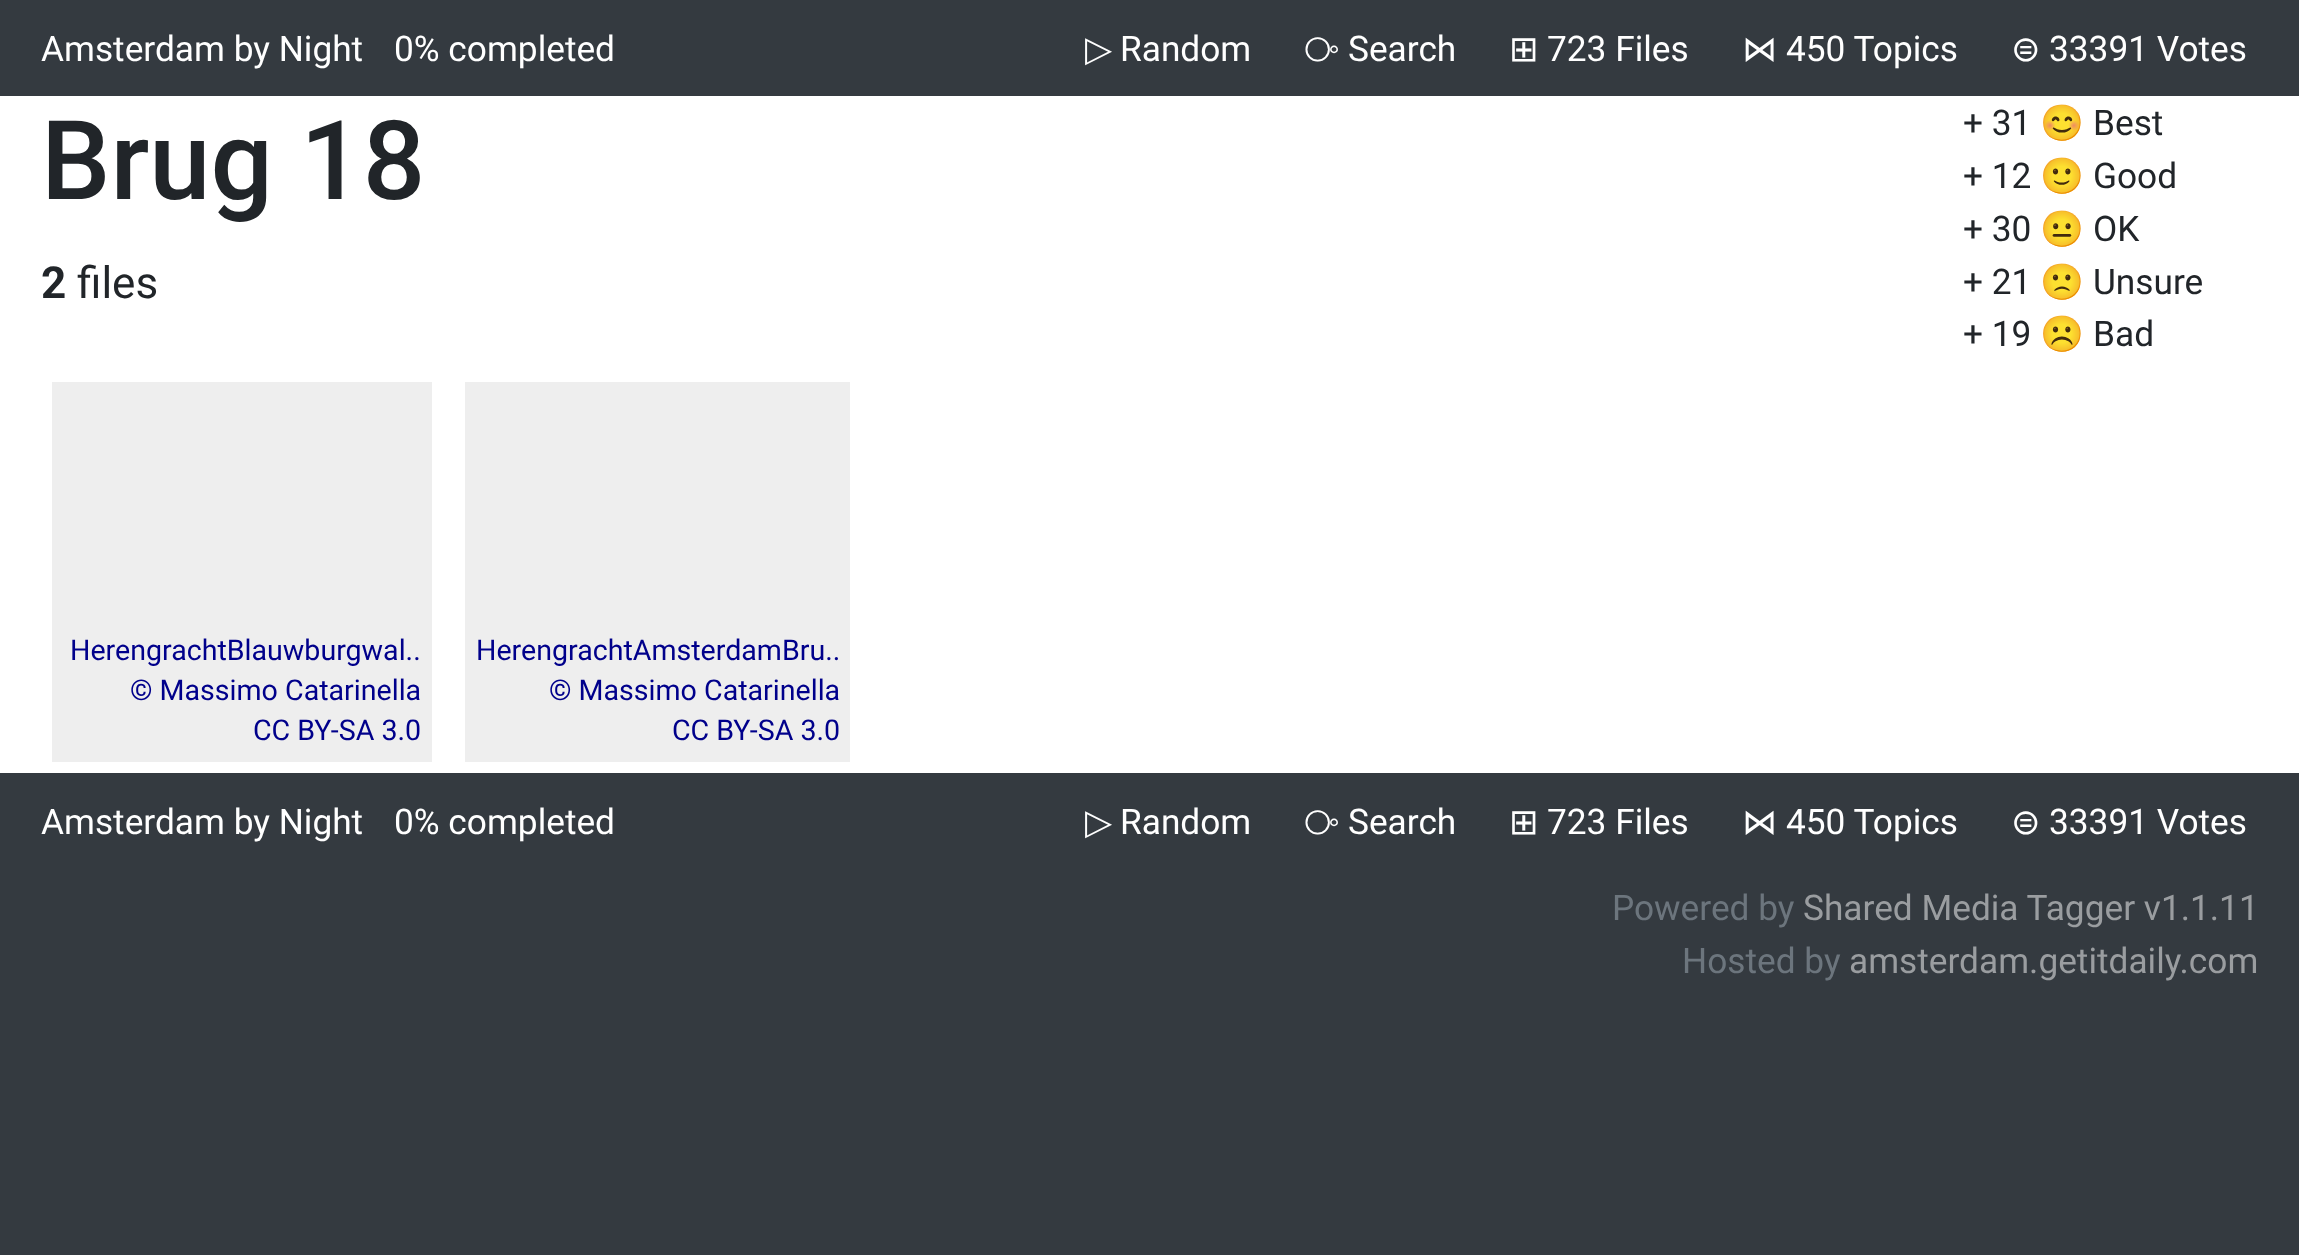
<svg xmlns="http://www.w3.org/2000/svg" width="2299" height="1255">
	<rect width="100%" height="100%" fill="#343A40" />
	<g font-family="Roboto" font-size="35.25" fill="#FFFFFF">
		<text x="41" y="61">Amsterdam by Night</text>
		<text x="394" y="61">0% completed</text>
	</g>
	<text x="1085" y="61" font-family="DejaVu Sans" font-size="35.25" fill="#FFFFFF">▷</text>
	<text x="1120" y="61" font-family="Roboto" font-size="35.25" fill="#FFFFFF">Random</text>
	<text x="1304" y="61" font-family="FreeSans" font-size="35.25" fill="#FFFFFF">⧂</text>
	<text x="1348" y="61" font-family="Roboto" font-size="35.25" fill="#FFFFFF">Search</text>
	<text x="1509" y="61" font-family="DejaVu Sans" font-size="35.25" fill="#FFFFFF">⊞</text>
	<text x="1547" y="61" font-family="Roboto" font-size="35.25" fill="#FFFFFF">723 Files</text>
	<text x="1742" y="61" font-family="DejaVu Sans" font-size="35.25" fill="#FFFFFF">⋈</text>
	<text x="1786" y="61" font-family="Roboto" font-size="35.25" fill="#FFFFFF">450 Topics</text>
	<text x="2011" y="61" font-family="DejaVu Sans" font-size="35.25" fill="#FFFFFF">⊜</text>
	<text x="2049" y="61" font-family="Roboto" font-size="35.25" fill="#FFFFFF">33391 Votes</text>
	<rect x="0" y="96" width="2299" height="677" fill="#FFFFFF" />
	<text x="41" y="199" font-family="Roboto" font-size="110" font-weight="500" fill="#212529">Brug 18</text>
	<text x="1963" y="135" font-family="Roboto" font-size="35.25" fill="#212529">+ 31</text>
	<text x="2040" y="135" font-family="Noto Color Emoji" font-size="35.25" fill="#212529">😊</text>
	<g font-family="Roboto" font-size="35.25" fill="#212529">
		<text x="2093" y="135">Best</text>
		<text x="1963" y="188">+ 12</text>
	</g>
	<text x="2040" y="188" font-family="Noto Color Emoji" font-size="35.25" fill="#212529">🙂</text>
	<g font-family="Roboto" font-size="35.25" fill="#212529">
		<text x="2093" y="188">Good</text>
		<text x="1963" y="241">+ 30</text>
	</g>
	<text x="2040" y="241" font-family="Noto Color Emoji" font-size="35.25" fill="#212529">😐</text>
	<g font-family="Roboto" font-size="35.25" fill="#212529">
		<text x="2093" y="241">OK</text>
		<text x="1963" y="294">+ 21</text>
	</g>
	<text x="2040" y="294" font-family="Noto Color Emoji" font-size="35.25" fill="#212529">🙁</text>
	<g font-family="Roboto" font-size="35.25" fill="#212529">
		<text x="2093" y="294">Unsure</text>
		<text x="1963" y="346">+ 19</text>
	</g>
	<text x="2040" y="346" font-family="Noto Color Emoji" font-size="35.25" fill="#212529">☹️</text>
	<text x="2093" y="346" font-family="Roboto" font-size="35.25" fill="#212529">Bad</text>
	<text x="41" y="298" font-family="Roboto" font-size="44" font-weight="700" fill="#212529">2</text>
	<text x="77" y="298" font-family="Roboto" font-size="44" fill="#212529">files</text>
	<rect x="52" y="382" width="380" height="380" fill="#EEEEEE" />
	<g font-family="Roboto" font-size="28.6" fill="#00008B">
		<text x="70" y="660">HerengrachtBlauwburgwal..</text>
		<text x="130" y="700">© Massimo Catarinella</text>
		<text x="253" y="740">CC BY-SA 3.0</text>
	</g>
	<rect x="465" y="382" width="385" height="380" fill="#EEEEEE" />
	<g font-family="Roboto" font-size="28.6" fill="#00008B">
		<text x="476" y="660">HerengrachtAmsterdamBru..</text>
		<text x="549" y="700">© Massimo Catarinella</text>
		<text x="672" y="740">CC BY-SA 3.0</text>
	</g>
	<g font-family="Roboto" font-size="35.25" fill="#FFFFFF">
		<text x="41" y="834">Amsterdam by Night</text>
		<text x="394" y="834">0% completed</text>
	</g>
	<text x="1085" y="834" font-family="DejaVu Sans" font-size="35.25" fill="#FFFFFF">▷</text>
	<text x="1120" y="834" font-family="Roboto" font-size="35.25" fill="#FFFFFF">Random</text>
	<text x="1304" y="834" font-family="FreeSans" font-size="35.25" fill="#FFFFFF">⧂</text>
	<text x="1348" y="834" font-family="Roboto" font-size="35.25" fill="#FFFFFF">Search</text>
	<text x="1509" y="834" font-family="DejaVu Sans" font-size="35.25" fill="#FFFFFF">⊞</text>
	<text x="1547" y="834" font-family="Roboto" font-size="35.25" fill="#FFFFFF">723 Files</text>
	<text x="1742" y="834" font-family="DejaVu Sans" font-size="35.25" fill="#FFFFFF">⋈</text>
	<text x="1786" y="834" font-family="Roboto" font-size="35.25" fill="#FFFFFF">450 Topics</text>
	<text x="2011" y="834" font-family="DejaVu Sans" font-size="35.25" fill="#FFFFFF">⊜</text>
	<text x="2049" y="834" font-family="Roboto" font-size="35.25" fill="#FFFFFF">33391 Votes</text>
	<text x="1612" y="920" font-family="Roboto" font-size="35.25" fill="#6C757D">Powered by</text>
	<text x="1803" y="920" font-family="Roboto" font-size="35.25" fill="#9A9DA0">Shared Media Tagger v1.1.11</text>
	<text x="1682" y="973" font-family="Roboto" font-size="35.25" fill="#6C757D">Hosted by</text>
	<text x="1849" y="973" font-family="Roboto" font-size="35.25" fill="#9A9DA0">amsterdam.getitdaily.com</text>
</svg>
